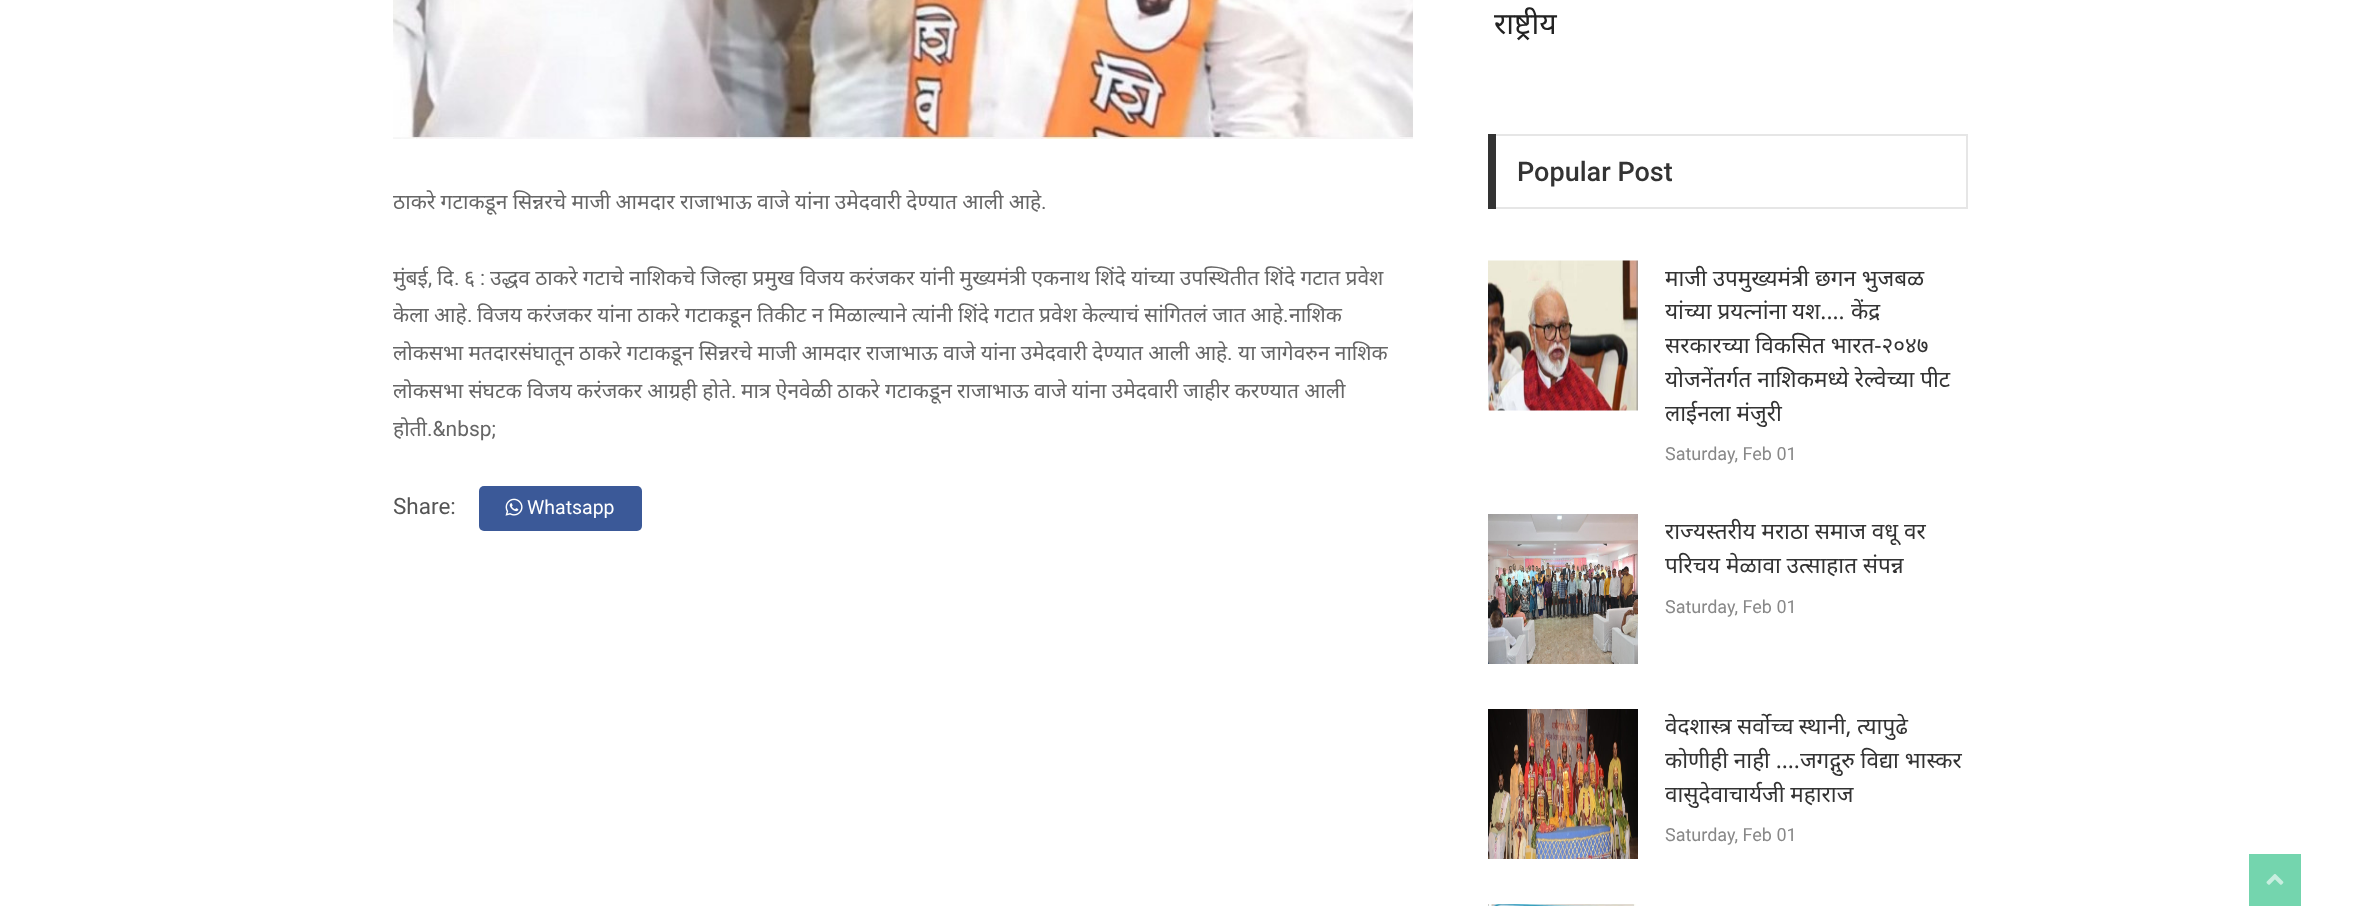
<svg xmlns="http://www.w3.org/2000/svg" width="2361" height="906">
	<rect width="100%" height="100%" fill="#FFFFFF" />
	<image x="393" y="0" width="1020" height="139" href="assets/img1.png" />
	<text x="393" y="209" word-spacing="-0.25" font-family="Noto Sans" font-size="21" fill="#666666">ठाकरे गटाकडून सिन्नरचे माजी आमदार राजाभाऊ वाजे यांना उमेदवारी देण्यात आली आहे</text>
	<text x="1041" y="209" font-family="Roboto" font-size="21" fill="#666666">.</text>
	<text x="393" y="285" font-family="Noto Sans" font-size="21" fill="#666666">मुंबई</text>
	<text x="428" y="285" font-family="Roboto" font-size="21" fill="#666666">,</text>
	<text x="437" y="285" font-family="Noto Sans" font-size="21" fill="#666666">दि</text>
	<text x="454" y="285" font-family="Roboto" font-size="21" fill="#666666">.</text>
	<text x="464" y="285" font-family="Noto Sans" font-size="21" fill="#666666">६</text>
	<text x="480" y="285" font-family="Roboto" font-size="21" fill="#666666">:</text>
	<g font-family="Noto Sans" font-size="21" fill="#666666">
		<text x="490" y="285" word-spacing="-0.25">उद्धव ठाकरे गटाचे नाशिकचे जिल्हा प्रमुख विजय करंजकर यांनी मुख्यमंत्री एकनाथ शिंदे यांच्या उपस्थितीत शिंदे गटात प्रवेश</text>
		<text x="393" y="322" word-spacing="-0.25">केला आहे</text>
	</g>
	<text x="467" y="322" font-family="Roboto" font-size="21" fill="#666666">.</text>
	<text x="477" y="322" word-spacing="-0.25" font-family="Noto Sans" font-size="21" fill="#666666">विजय करंजकर यांना ठाकरे गटाकडून तिकीट न मिळाल्याने त्यांनी शिंदे गटात प्रवेश केल्याचं सांगितलं जात आहे</text>
	<text x="1283" y="322" font-family="Roboto" font-size="21" fill="#666666">.</text>
	<g font-family="Noto Sans" font-size="21" fill="#666666">
		<text x="1289" y="322">नाशिक</text>
		<text x="393" y="360" word-spacing="-0.25">लोकसभा मतदारसंघातून ठाकरे गटाकडून सिन्नरचे माजी आमदार राजाभाऊ वाजे यांना उमेदवारी देण्यात आली आहे</text>
	</g>
	<text x="1227" y="360" font-family="Roboto" font-size="21" fill="#666666">.</text>
	<g font-family="Noto Sans" font-size="21" fill="#666666">
		<text x="1238" y="360" word-spacing="-0.25">या जागेवरुन नाशिक</text>
		<text x="393" y="398" word-spacing="-0.25">लोकसभा संघटक विजय करंजकर आग्रही होते</text>
	</g>
	<text x="731" y="398" font-family="Roboto" font-size="21" fill="#666666">.</text>
	<g font-family="Noto Sans" font-size="21" fill="#666666">
		<text x="741" y="398" word-spacing="-0.25">मात्र ऐनवेळी ठाकरे गटाकडून राजाभाऊ वाजे यांना उमेदवारी जाहीर करण्यात आली</text>
		<text x="393" y="436">होती</text>
	</g>
	<text x="427" y="436" font-family="Roboto" font-size="21" fill="#666666">.&amp;nbsp;</text>
	<text x="393" y="514" font-family="Roboto" font-size="22.5" fill="#555555">Share:</text>
	<rect x="479" y="486" width="163" height="45" rx="5" fill="#3B5998" />
	<image x="505" y="498" width="18" height="18" href="assets/img2.png" />
	<text x="527" y="514" font-family="Roboto" font-size="19.5" fill="#FFFFFF">Whatsapp</text>
	<text x="1494" y="34" font-family="Noto Sans" font-size="30" fill="#222222">राष्ट्रीय</text>
	<rect x="1489" y="135" width="478" height="73" fill="none" stroke="#E6E6E6" stroke-width="2" />
	<rect x="1488" y="134" width="8" height="75" fill="#333333" />
	<text x="1517" y="181" font-family="Roboto" font-size="27" font-weight="500" fill="#333333">Popular Post</text>
	<image x="1488" y="260" width="150" height="151" href="assets/img3.png" />
	<g font-family="Noto Sans" font-size="22.5" fill="#333333">
		<text x="1665" y="286">माजी उपमुख्यमंत्री छगन भुजबळ</text>
		<text x="1665" y="319">यांच्या प्रयत्नांना</text>
		<text x="1792" y="319">यश....</text>
		<text x="1851" y="319">केंद्र</text>
		<text x="1665" y="353">सरकारच्या विकसित भारत-२०४७</text>
		<text x="1665" y="387">योजनेंतर्गत नाशिकमध्ये रेल्वेच्या पीट</text>
		<text x="1665" y="421">लाईनला मंजुरी</text>
	</g>
	<text x="1665" y="460" font-family="Roboto" font-size="18" fill="#888888">Saturday, Feb 01</text>
	<image x="1488" y="514" width="150" height="150" href="assets/img4.png" />
	<g font-family="Noto Sans" font-size="22.5" fill="#333333">
		<text x="1665" y="539">राज्यस्तरीय मराठा समाज वधू वर</text>
		<text x="1665" y="573">परिचय मेळावा उत्साहात संपन्न</text>
	</g>
	<text x="1665" y="613" font-family="Roboto" font-size="18" fill="#888888">Saturday, Feb 01</text>
	<image x="1488" y="709" width="150" height="150" href="assets/img5.png" />
	<g font-family="Noto Sans" font-size="22.5" fill="#333333">
		<text x="1665" y="734" word-spacing="-0.5">वेदशास्त्र सर्वोच्च स्थानी, त्यापुढे</text>
		<text x="1665" y="768">कोणीही नाही ....जगद्गुरु विद्या भास्कर</text>
		<text x="1665" y="802">वासुदेवाचार्यजी महाराज</text>
	</g>
	<text x="1665" y="841" font-family="Roboto" font-size="18" fill="#888888">Saturday, Feb 01</text>
	<image x="1488" y="904" width="148" height="2" href="assets/img6.png" />
	<rect x="2249" y="854" width="52" height="52" fill="#74D5AE" />
	<image x="2266" y="874" width="18" height="11" href="assets/img7.png" />
</svg>
